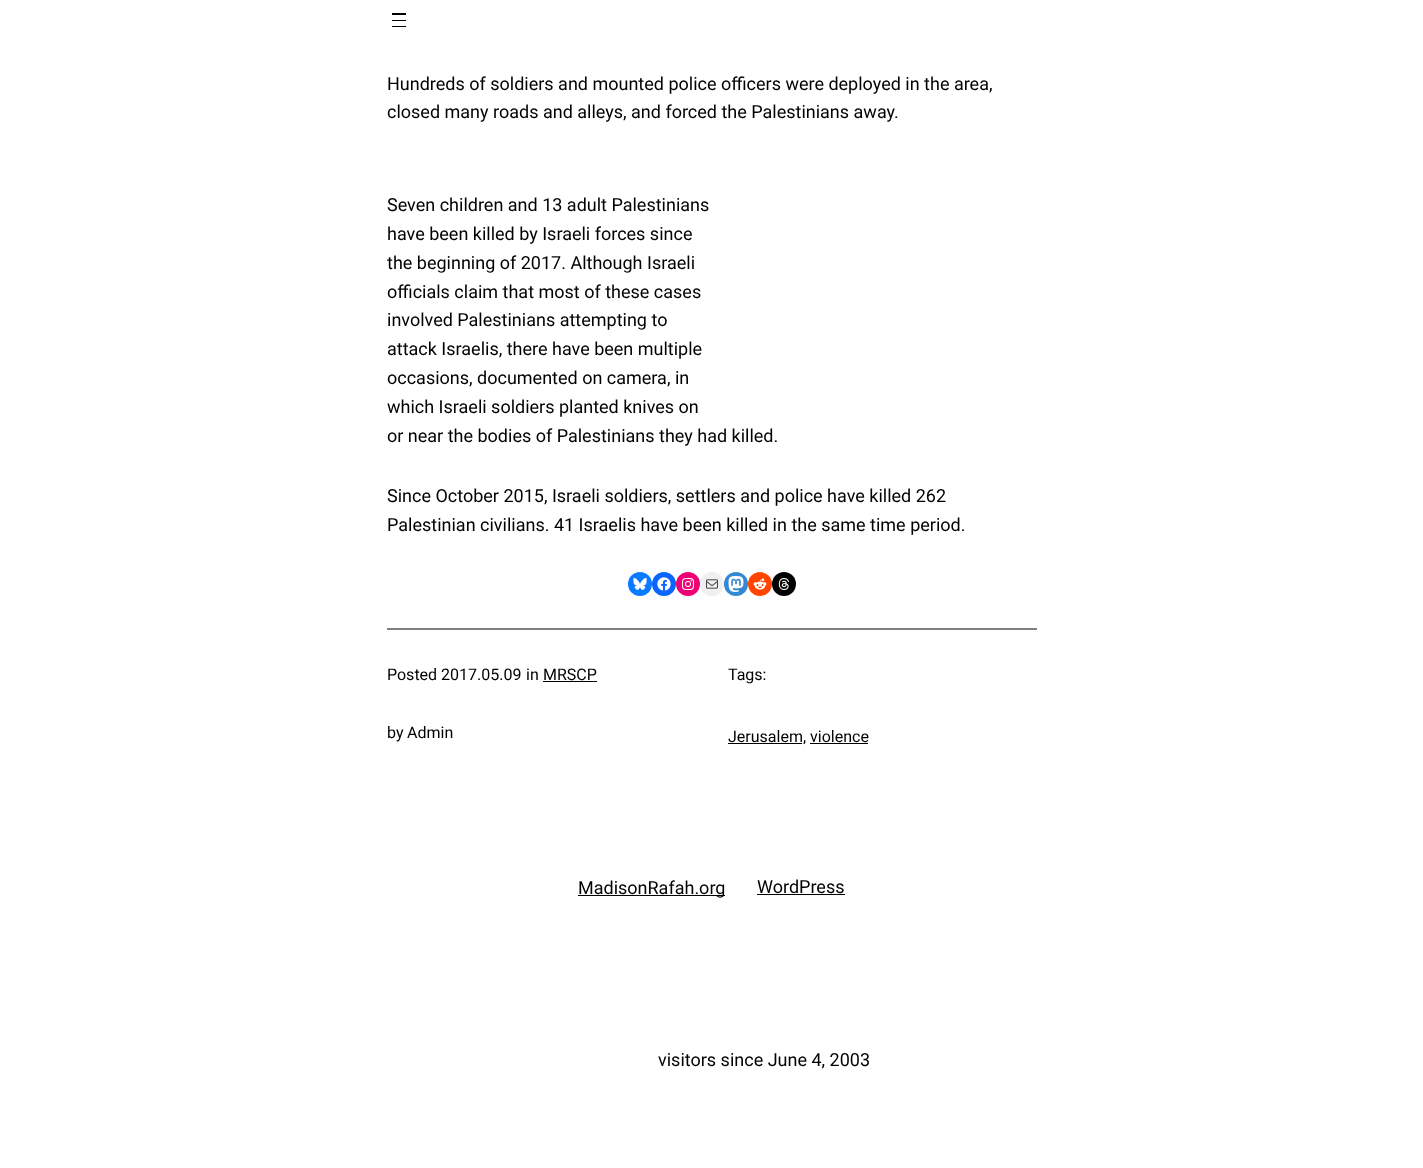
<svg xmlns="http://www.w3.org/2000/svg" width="1423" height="1168">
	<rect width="100%" height="100%" fill="#FFFFFF" />
	<rect x="392" y="13" width="14" height="2" fill="#000000" />
	<rect x="392" y="20" width="14" height="1" fill="#000000" />
	<rect x="392" y="26" width="14" height="1" fill="#000000" />
	<g font-family="Roboto" font-size="18" fill="#000000">
		<text x="387" y="90">Hundreds of soldiers and mounted police officers were deployed in the area,</text>
		<text x="387" y="118">closed many roads and alleys, and forced the Palestinians away.</text>
		<text x="387" y="211">Seven children and 13 adult Palestinians</text>
		<text x="387" y="240">have been killed by Israeli forces since</text>
		<text x="387" y="269">the beginning of 2017. Although Israeli</text>
		<text x="387" y="298">officials claim that most of these cases</text>
		<text x="387" y="326">involved Palestinians attempting to</text>
		<text x="387" y="355">attack Israelis, there have been multiple</text>
		<text x="387" y="384">occasions, documented on camera, in</text>
		<text x="387" y="413">which Israeli soldiers planted knives on</text>
		<text x="387" y="442">or near the bodies of Palestinians they had killed.</text>
		<text x="387" y="502">Since October 2015, Israeli soldiers, settlers and police have killed 262</text>
		<text x="387" y="531">Palestinian civilians. 41 Israelis have been killed in the same time period.</text>
	</g>
	<circle cx="640" cy="584" r="12" fill="#0A7AFF" />
	<image x="633" y="578" width="14" height="12" href="assets/img1.png" />
	<circle cx="664" cy="584" r="12" fill="#0866FF" />
	<image x="657" y="577" width="14" height="14" href="assets/img2.png" />
	<circle cx="688" cy="584" r="12" fill="#F00075" />
	<image x="682" y="578" width="12" height="12" href="assets/img3.png" />
	<circle cx="712" cy="584" r="12" fill="#F0F0F0" />
	<image x="706" y="579" width="12" height="10" href="assets/img4.png" />
	<circle cx="736" cy="584" r="12" fill="#3288D4" />
	<image x="728" y="576" width="16" height="16" href="assets/img5.png" />
	<circle cx="760" cy="584" r="12" fill="#FF4500" />
	<image x="753" y="578" width="14" height="12" href="assets/img6.png" />
	<circle cx="784" cy="584" r="12" fill="#000000" />
	<image x="778" y="578" width="11" height="12" href="assets/img7.png" />
	<rect x="387" y="628" width="650" height="2" fill="#808080" />
	<g font-family="Roboto" font-size="16" fill="#000000">
		<text x="387" y="680">Posted</text>
		<text x="441" y="680">2017.05.09</text>
		<text x="526" y="680">in</text>
		<text x="543" y="680">MRSCP</text>
	</g>
	<rect x="543" y="681" width="54" height="1" fill="#000000" />
	<g font-family="Roboto" font-size="16" fill="#000000">
		<text x="387" y="738">by</text>
		<text x="407" y="738">Admin</text>
		<text x="728" y="680">Tags:</text>
	</g>
	<rect x="728" y="743" width="74" height="1" fill="#000000" />
	<text x="728" y="742" font-family="Roboto" font-size="16" fill="#000000">Jerusalem, violence</text>
	<rect x="810" y="743" width="58" height="1" fill="#000000" />
	<rect x="578" y="895" width="147" height="1" fill="#000000" />
	<g font-family="Roboto" font-size="18" fill="#000000">
		<text x="578" y="894">MadisonRafah.org</text>
		<text x="757" y="893">WordPress</text>
	</g>
	<rect x="757" y="894" width="88" height="1" fill="#000000" />
	<text x="658" y="1066" font-family="Roboto" font-size="18" fill="#000000">visitors since June 4, 2003</text>
</svg>
